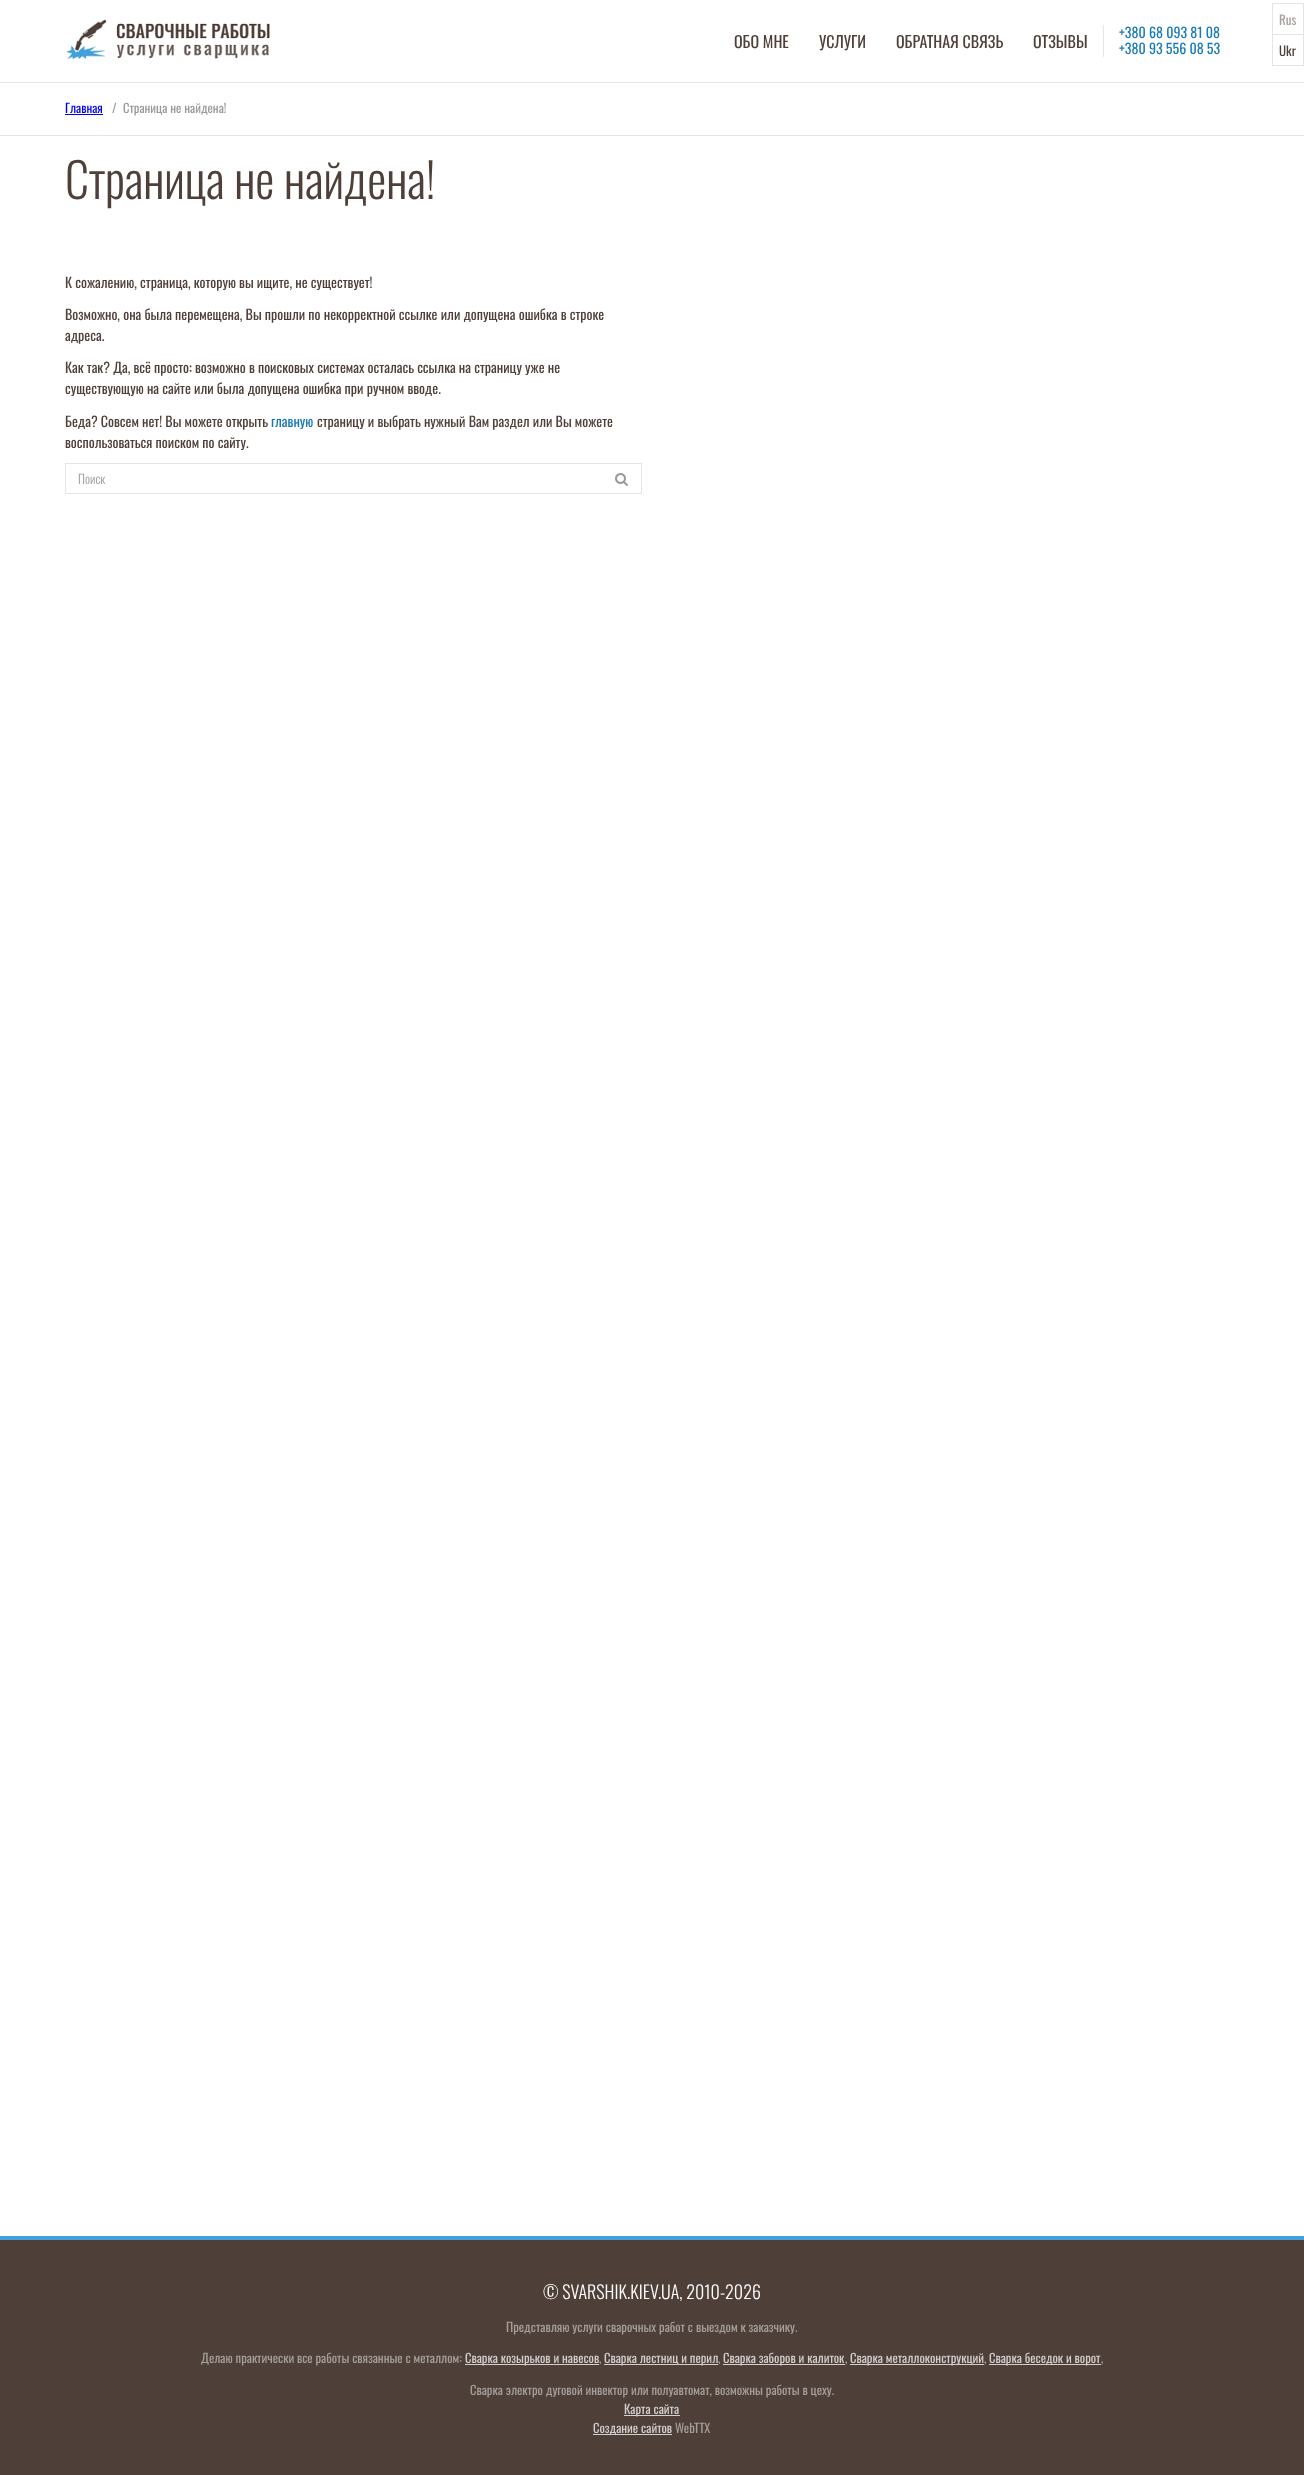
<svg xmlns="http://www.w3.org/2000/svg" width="1304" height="2475">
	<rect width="100%" height="100%" fill="#FFFFFF" />
	<rect x="0" y="82" width="1304" height="1" fill="#E6E6E6" />
	<image x="66" y="19" width="204" height="40" href="assets/img1.png" />
	<g font-family="Oswald" font-size="16" fill="#4F3F39">
		<text x="734" y="48">ОБО МНЕ</text>
		<text x="819" y="48">УСЛУГИ</text>
		<text x="896" y="48">ОБРАТНАЯ СВЯЗЬ</text>
		<text x="1033" y="48">ОТЗЫВЫ</text>
	</g>
	<rect x="1103" y="25" width="1" height="32" fill="#E6E6E6" />
	<g font-family="Oswald" font-size="14" fill="#1779B9">
		<text x="1119" y="38">+380 68 093 81 08</text>
		<text x="1119" y="54">+380 93 556 08 53</text>
	</g>
	<rect x="0" y="135" width="1304" height="1" fill="#E4E4E4" />
	<text x="65" y="113" font-family="Oswald" font-size="12.6" fill="#0000EE">Главная</text>
	<rect x="65" y="114" width="38" height="1" fill="#0000EE" />
	<g font-family="Oswald" font-size="12.6" fill="#999999">
		<text x="112" y="113">/</text>
		<text x="123" y="113">Страница не найдена!</text>
	</g>
	<text x="65" y="199" font-family="Oswald" font-size="48" font-weight="300" fill="#4F3F39">Страница не найдена!</text>
	<g font-family="Oswald" font-size="14" fill="#4F3F39">
		<text x="65" y="288">К сожалению, страница, которую вы ищите, не существует!</text>
		<text x="65" y="320">Возможно, она была перемещена, Вы прошли по некорректной ссылке или допущена ошибка в строке</text>
		<text x="65" y="341">адреса.</text>
		<text x="65" y="373">Как так? Да, всё просто: возможно в поисковых системах осталась ссылка на страницу уже не</text>
		<text x="65" y="394">существующую на сайте или была допущена ошибка при ручном вводе.</text>
		<text x="65" y="427">Беда? Совсем нет! Вы можете открыть</text>
	</g>
	<text x="271" y="427" font-family="Oswald" font-size="14" fill="#1779B9">главную</text>
	<g font-family="Oswald" font-size="14" fill="#4F3F39">
		<text x="317" y="427">страницу и выбрать нужный Вам раздел или Вы можете</text>
		<text x="65" y="448">воспользоваться поиском по сайту.</text>
	</g>
	<rect x="65.5" y="463.5" width="576" height="30" fill="none" stroke="#E4E4E4" />
	<text x="78" y="484" font-family="Oswald" font-size="12.6" font-weight="300" fill="#999999">Поиск</text>
	<image x="615" y="473" width="13" height="13" href="assets/img2.png" />
	<rect x="1272.5" y="3.5" width="31" height="31" fill="none" stroke="#E4E4E4" />
	<text x="1279" y="25" font-family="Oswald" font-size="13" fill="#A79F9C">Rus</text>
	<rect x="1272.5" y="34.5" width="31" height="31" fill="none" stroke="#E4E4E4" />
	<text x="1279" y="56" font-family="Oswald" font-size="13" fill="#4F3F39">Ukr</text>
	<rect x="0" y="2240" width="1304" height="235" fill="#4F3F39" />
	<rect x="0" y="2236" width="1304" height="4" fill="#459FDA" />
	<text x="543" y="2299" font-family="Oswald" font-size="18" font-weight="300" fill="#FFFFFF">© SVARSHIK.KIEV.UA, 2010-2026</text>
	<g font-family="Oswald" font-size="12.6" fill="#A79F9C">
		<text x="506" y="2332">Представляю услуги сварочных работ с выездом к заказчику.</text>
		<text x="201" y="2363">Делаю практически все работы связанные с металлом:</text>
	</g>
	<rect x="465" y="2364" width="134" height="1" fill="#D3CFCE" />
	<text x="465" y="2363" font-family="Oswald" font-size="12.6" fill="#D3CFCE">Сварка козырьков и навесов</text>
	<text x="599" y="2363" font-family="Oswald" font-size="12.6" fill="#A79F9C">,</text>
	<rect x="604" y="2364" width="114" height="1" fill="#D3CFCE" />
	<text x="604" y="2363" font-family="Oswald" font-size="12.6" fill="#D3CFCE">Сварка лестниц и перил</text>
	<text x="718" y="2363" font-family="Oswald" font-size="12.6" fill="#A79F9C">,</text>
	<rect x="723" y="2364" width="122" height="1" fill="#D3CFCE" />
	<text x="723" y="2363" font-family="Oswald" font-size="12.6" fill="#D3CFCE">Сварка заборов и калиток</text>
	<text x="845" y="2363" font-family="Oswald" font-size="12.6" fill="#A79F9C">,</text>
	<rect x="850" y="2364" width="134" height="1" fill="#D3CFCE" />
	<text x="850" y="2363" font-family="Oswald" font-size="12.6" fill="#D3CFCE">Сварка металлоконструкций</text>
	<text x="984" y="2363" font-family="Oswald" font-size="12.6" fill="#A79F9C">,</text>
	<rect x="989" y="2364" width="112" height="1" fill="#D3CFCE" />
	<text x="989" y="2363" font-family="Oswald" font-size="12.6" fill="#D3CFCE">Сварка беседок и ворот</text>
	<g font-family="Oswald" font-size="12.6" fill="#A79F9C">
		<text x="1101" y="2363">,</text>
		<text x="470" y="2395">Сварка электро дуговой инвектор или полуавтомат, возможны работы в цеху.</text>
	</g>
	<rect x="624" y="2415" width="56" height="1" fill="#D3CFCE" />
	<text x="624" y="2414" font-family="Oswald" font-size="12.6" fill="#D3CFCE">Карта сайта</text>
	<rect x="593" y="2434" width="79" height="1" fill="#D3CFCE" />
	<text x="593" y="2433" font-family="Oswald" font-size="12.6" fill="#D3CFCE">Создание сайтов</text>
	<text x="675" y="2433" font-family="Oswald" font-size="12.6" fill="#A79F9C">WebTTX</text>
</svg>
